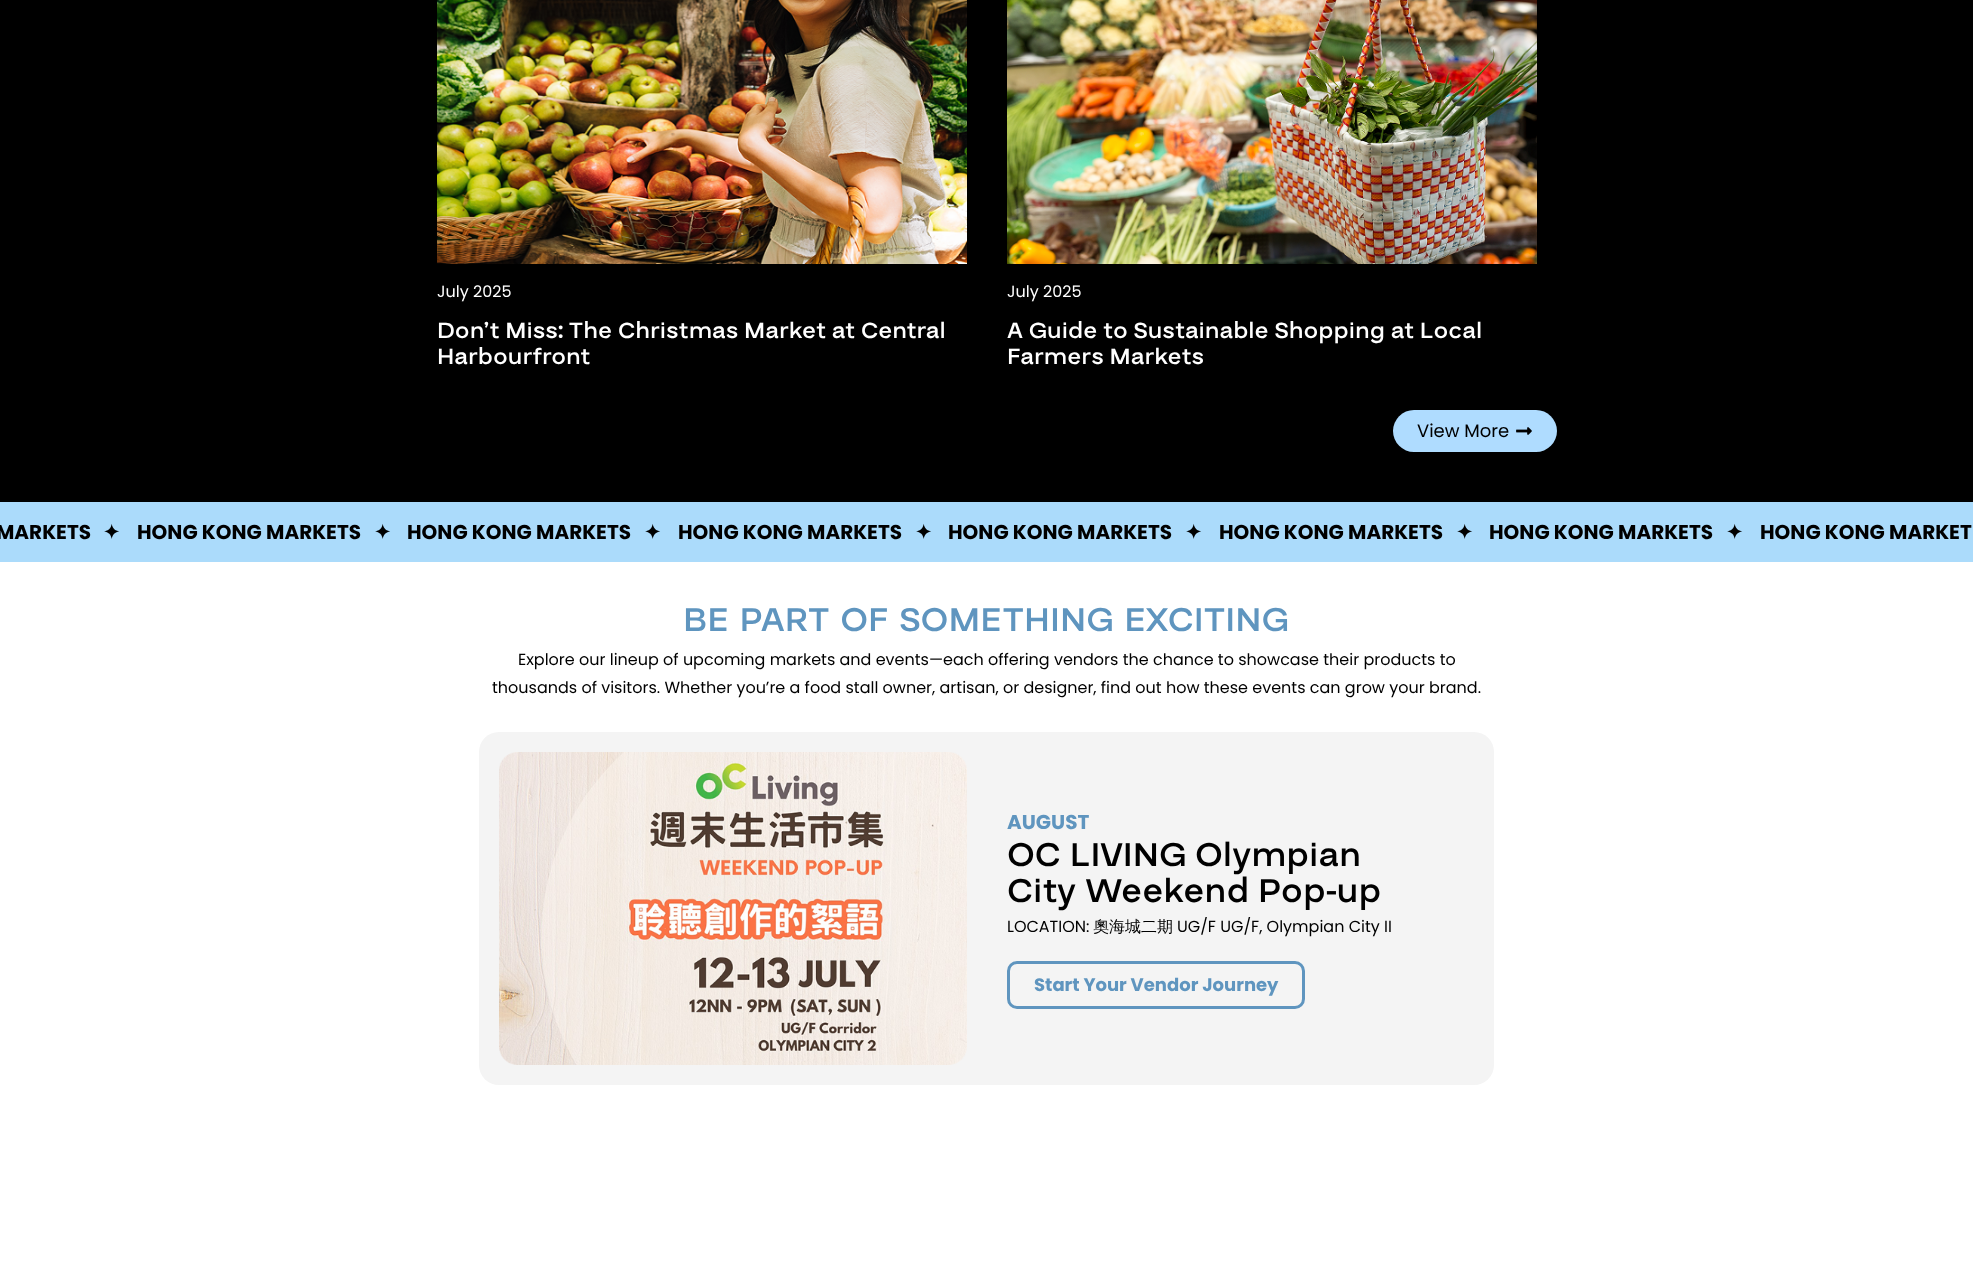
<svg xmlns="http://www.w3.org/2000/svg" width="1973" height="1266">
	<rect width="100%" height="100%" fill="#FFFFFF" />
	<rect x="0" y="0" width="1973" height="502" fill="#000000" />
	<image x="437" y="0" width="530" height="264" href="assets/img1.png" />
	<text x="437" y="297" font-family="Poppins" font-size="16" fill="#FFFFFF">July 2025</text>
	<g font-family="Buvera" font-size="24" font-weight="500" fill="#FFFFFF">
		<text x="437" y="338">Don’t Miss: The Christmas Market at Central</text>
		<text x="437" y="364">Harbourfront</text>
	</g>
	<image x="1007" y="0" width="530" height="264" href="assets/img2.png" />
	<text x="1007" y="297" font-family="Poppins" font-size="16" fill="#FFFFFF">July 2025</text>
	<g font-family="Buvera" font-size="24" font-weight="500" fill="#FFFFFF">
		<text x="1007" y="338">A Guide to Sustainable Shopping at Local</text>
		<text x="1007" y="364">Farmers Markets</text>
	</g>
	<rect x="1393" y="410" width="164" height="42" rx="21" fill="#AFDCFF" />
	<text x="1417" y="437" font-family="Poppins" font-size="18" fill="#000000">View More</text>
	<image x="1516" y="427" width="16" height="8" href="assets/img3.png" />
	<rect x="0" y="502" width="1973" height="60" fill="#ABDBFB" />
	<text x="-4" y="539" font-family="Poppins" font-size="20" font-weight="700" fill="#000000">MARKETS</text>
	<text x="103" y="539" font-family="DejaVu Sans" font-size="20" font-weight="700" fill="#000000">✦</text>
	<text x="137" y="539" font-family="Poppins" font-size="20" font-weight="700" fill="#000000">HONG KONG MARKETS</text>
	<text x="374" y="539" font-family="DejaVu Sans" font-size="20" font-weight="700" fill="#000000">✦</text>
	<text x="407" y="539" font-family="Poppins" font-size="20" font-weight="700" fill="#000000">HONG KONG MARKETS</text>
	<text x="644" y="539" font-family="DejaVu Sans" font-size="20" font-weight="700" fill="#000000">✦</text>
	<text x="678" y="539" font-family="Poppins" font-size="20" font-weight="700" fill="#000000">HONG KONG MARKETS</text>
	<text x="915" y="539" font-family="DejaVu Sans" font-size="20" font-weight="700" fill="#000000">✦</text>
	<text x="948" y="539" font-family="Poppins" font-size="20" font-weight="700" fill="#000000">HONG KONG MARKETS</text>
	<text x="1185" y="539" font-family="DejaVu Sans" font-size="20" font-weight="700" fill="#000000">✦</text>
	<text x="1219" y="539" font-family="Poppins" font-size="20" font-weight="700" fill="#000000">HONG KONG MARKETS</text>
	<text x="1456" y="539" font-family="DejaVu Sans" font-size="20" font-weight="700" fill="#000000">✦</text>
	<text x="1489" y="539" font-family="Poppins" font-size="20" font-weight="700" fill="#000000">HONG KONG MARKETS</text>
	<text x="1726" y="539" font-family="DejaVu Sans" font-size="20" font-weight="700" fill="#000000">✦</text>
	<text x="1760" y="539" font-family="Poppins" font-size="20" font-weight="700" fill="#000000">HONG KONG MARKET</text>
	<text x="683" y="631" word-spacing="2" font-family="Buvera" font-size="36" font-weight="500" fill="#5F95BF">BE PART OF SOMETHING EXCITING</text>
	<g font-family="Poppins" font-size="16" fill="#000000">
		<text x="518" y="665">Explore our lineup of upcoming markets and events—each offering vendors the chance to showcase their products to</text>
		<text x="492" y="693">thousands of visitors. Whether you’re a food stall owner, artisan, or designer, find out how these events can grow your brand.</text>
	</g>
	<rect x="479" y="732" width="1015" height="353" rx="20" fill="#F4F4F4" />
	<image x="499" y="752" width="468" height="313" href="assets/img4.png" />
	<text x="1007" y="829" font-family="Poppins" font-size="20" font-weight="700" fill="#5F95BF">AUGUST</text>
	<g font-family="Buvera" font-size="36" font-weight="500" fill="#000000">
		<text x="1007" y="866">OC LIVING Olympian</text>
		<text x="1007" y="902">City Weekend Pop-up</text>
	</g>
	<text x="1007" y="932" font-family="Poppins" font-size="16" fill="#000000">LOCATION:</text>
	<text x="1093" y="932" font-family="WenQuanYi Zen Hei" font-size="16" font-weight="500" fill="#000000">奧海城二期</text>
	<text x="1177" y="932" font-family="Poppins" font-size="16" fill="#000000">UG/F UG/F, Olympian City II</text>
	<rect x="1008.5" y="962.5" width="295" height="45" rx="8.5" fill="none" stroke="#5F95BF" stroke-width="3" />
	<text x="1034" y="991" font-family="Poppins" font-size="18" font-weight="700" fill="#5F95BF">Start Your Vendor Journey</text>
</svg>
